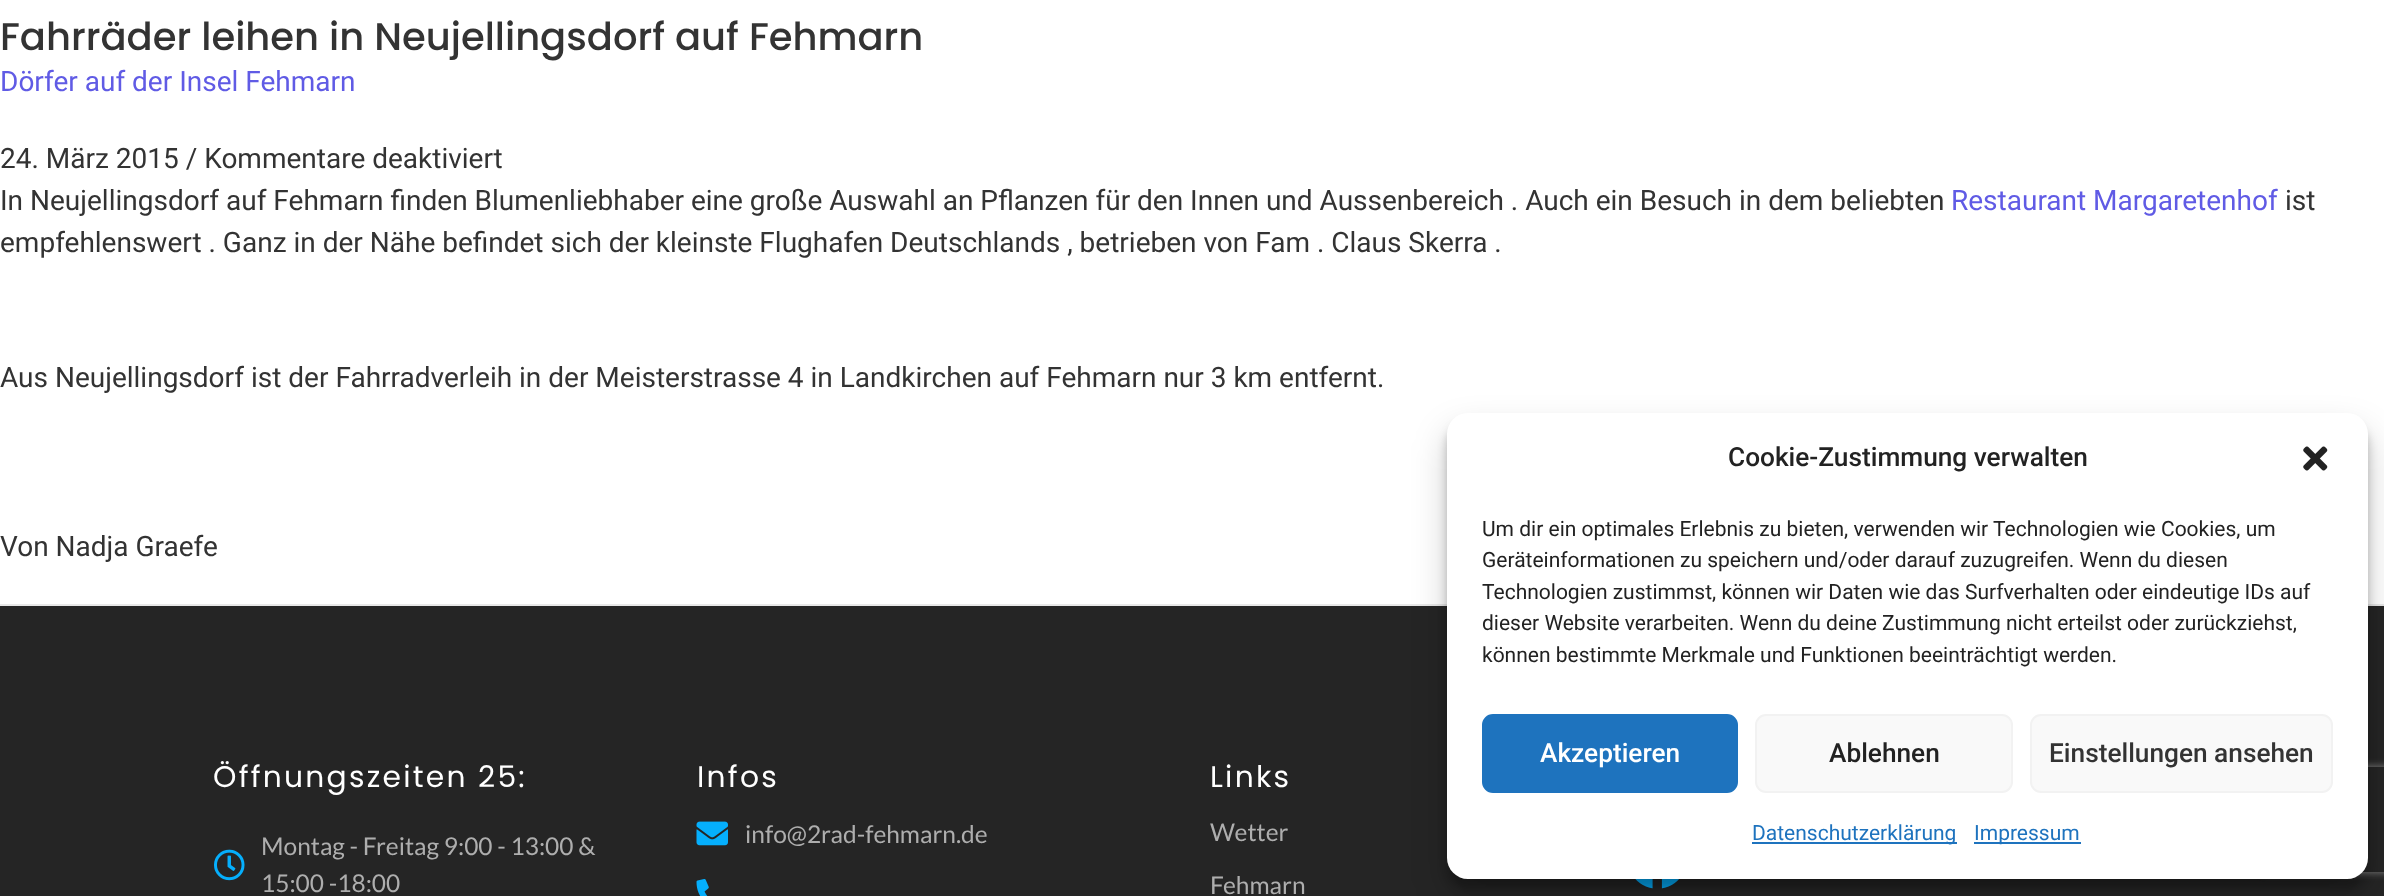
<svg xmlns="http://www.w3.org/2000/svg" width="2384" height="896">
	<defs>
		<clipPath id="clip1"><path d="M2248 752H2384V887H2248ZM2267 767H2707C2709 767 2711 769 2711 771V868C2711 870 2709 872 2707 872H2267C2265 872 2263 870 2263 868V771C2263 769 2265 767 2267 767Z" clip-rule="evenodd" /></clipPath>
	</defs>
	<rect width="100%" height="100%" fill="#FFFFFF" />
	<text x="0" y="50" font-family="Poppins" font-size="38.5" font-weight="500" fill="#333333">Fahrräder leihen in Neujellingsdorf auf Fehmarn</text>
	<text x="0" y="91" font-family="Roboto" font-size="28" fill="#605BE5">Dörfer auf der Insel Fehmarn</text>
	<g font-family="Roboto" font-size="28" fill="#333333">
		<text x="0" y="168">24. März 2015 / Kommentare deaktiviert</text>
		<text x="0" y="210">In Neujellingsdorf auf Fehmarn finden Blumenliebhaber eine große Auswahl an Pflanzen für den Innen und Aussenbereich . Auch ein Besuch in dem beliebten</text>
	</g>
	<text x="1951" y="210" font-family="Roboto" font-size="28" fill="#605BE5">Restaurant Margaretenhof</text>
	<g font-family="Roboto" font-size="28" fill="#333333">
		<text x="2285" y="210">ist</text>
		<text x="0" y="252">empfehlenswert . Ganz in der Nähe befindet sich der kleinste Flughafen Deutschlands , betrieben von Fam . Claus Skerra .</text>
		<text x="0" y="387">Aus Neujellingsdorf ist der Fahrradverleih in der Meisterstrasse 4 in Landkirchen auf Fehmarn nur 3 km entfernt.</text>
	</g>
	<rect x="0" y="604" width="2384" height="2" fill="#E8E8E8" />
	<text x="0" y="556" font-family="Roboto" font-size="28" fill="#333333">Von Nadja Graefe</text>
	<rect x="0" y="606" width="2384" height="290" fill="#252525" />
	<text x="213" y="787" font-family="Poppins" font-size="29.75" letter-spacing="2.25" fill="#FFFFFF">Öffnungszeiten 25:</text>
	<image x="214" y="849" width="31" height="32" href="assets/img1.png" />
	<g font-family="Lato" font-size="24.5" fill="#AEAEAE">
		<text x="261" y="855">Montag - Freitag 9:00 - 13:00 &amp;</text>
		<text x="261" y="892">15:00 -18:00</text>
	</g>
	<text x="697" y="787" font-family="Poppins" font-size="29.75" letter-spacing="2.25" fill="#FFFFFF">Infos</text>
	<image x="696" y="821" width="32" height="25" href="assets/img2.png" />
	<text x="745" y="843" font-family="Lato" font-size="24.5" fill="#AEAEAE">info@2rad-fehmarn.de</text>
	<image x="696" y="879" width="13" height="17" href="assets/img3.png" />
	<text x="1210" y="787" font-family="Poppins" font-size="29.75" letter-spacing="2.25" fill="#FFFFFF">Links</text>
	<g font-family="Lato" font-size="24.5" fill="#AEAEAE">
		<text x="1210" y="841">Wetter</text>
		<text x="1210" y="894">Fehmarn</text>
	</g>
	<image x="1635" y="879" width="44" height="10" href="assets/img4.png" />
	<rect x="1447" y="424" width="921" height="465" rx="21" fill="#000000" fill-opacity="0.23" filter="blur(5px)" />
	<rect x="1447" y="431" width="921" height="465" rx="21" fill="#000000" fill-opacity="0.19" filter="blur(17.5px)" />
	<g clip-path="url(#clip1)">
		<rect x="2263" y="767" width="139" height="105" rx="4" fill="#808080" filter="blur(4.5px)" />
	</g>
	<rect x="1447" y="413" width="921" height="466" rx="21" fill="#FFFFFF" />
	<text x="1728" y="466" font-family="Roboto" font-size="26.25" font-weight="500" fill="#222222">Cookie-Zustimmung verwalten</text>
	<image x="2303" y="446" width="25" height="25" href="assets/img5.png" />
	<g font-family="Roboto" font-size="21" fill="#222222">
		<text x="1482" y="536">Um dir ein optimales Erlebnis zu bieten, verwenden wir Technologien wie Cookies, um</text>
		<text x="1482" y="567">Geräteinformationen zu speichern und/oder darauf zuzugreifen. Wenn du diesen</text>
		<text x="1482" y="599">Technologien zustimmst, können wir Daten wie das Surfverhalten oder eindeutige IDs auf</text>
		<text x="1482" y="630">dieser Website verarbeiten. Wenn du deine Zustimmung nicht erteilst oder zurückziehst,</text>
		<text x="1482" y="662">können bestimmte Merkmale und Funktionen beeinträchtigt werden.</text>
	</g>
	<rect x="1483" y="715" width="254" height="77" rx="10" fill="#1E73BE" stroke="#1E73BE" stroke-width="2" />
	<text x="1540" y="762" font-family="Roboto" font-size="26.25" font-weight="500" fill="#FFFFFF">Akzeptieren</text>
	<rect x="1756" y="715" width="256" height="77" rx="10" fill="#F9F9F9" stroke="#F2F2F2" stroke-width="2" />
	<text x="1829" y="762" font-family="Roboto" font-size="26.25" font-weight="500" fill="#222222">Ablehnen</text>
	<rect x="2031" y="715" width="301" height="77" rx="10" fill="#F9F9F9" stroke="#F2F2F2" stroke-width="2" />
	<text x="2049" y="762" font-family="Roboto" font-size="26.25" font-weight="500" fill="#333333">Einstellungen ansehen</text>
	<rect x="1752" y="842" width="205" height="2" fill="#1E73BE" />
	<text x="1752" y="840" font-family="Roboto" font-size="21" fill="#1E73BE">Datenschutzerklärung</text>
	<rect x="1974" y="842" width="107" height="2" fill="#1E73BE" />
	<text x="1974" y="840" font-family="Roboto" font-size="21" fill="#1E73BE">Impressum</text>
</svg>
